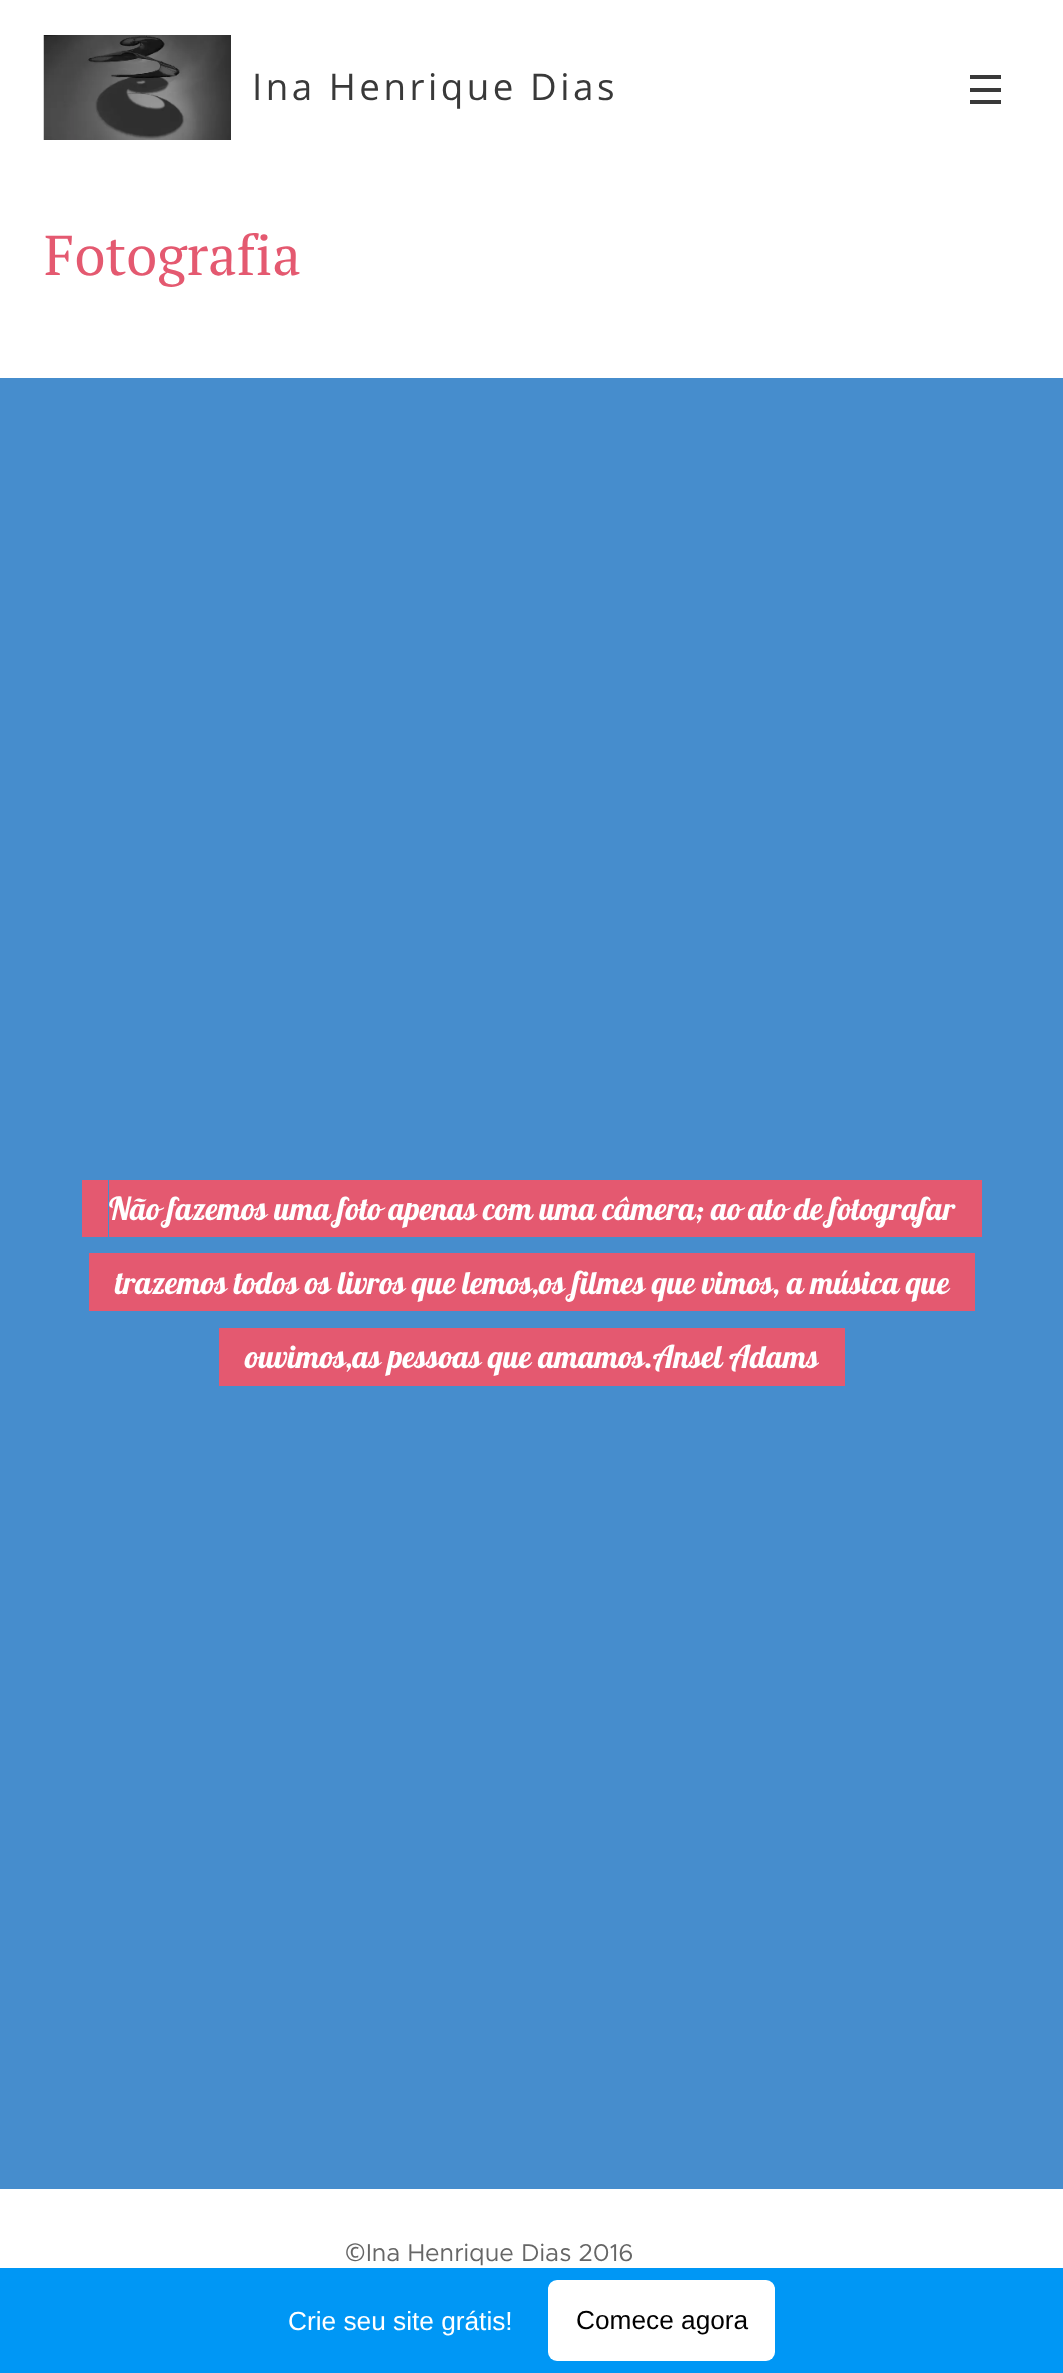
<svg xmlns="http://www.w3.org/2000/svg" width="1063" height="2373">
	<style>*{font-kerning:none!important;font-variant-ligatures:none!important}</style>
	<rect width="100%" height="100%" fill="#FFFFFF" />
	<image x="43" y="35" width="188" height="105" href="assets/img1.png" />
	<text x="252" y="100" font-family="Open Sans" font-size="36.75" letter-spacing="3.5" fill="#393939">Ina Henrique Dias</text>
	<rect x="970" y="88" width="31" height="4" fill="#393939" />
	<rect x="970" y="75" width="31" height="4" fill="#393939" />
	<rect x="970" y="100" width="31" height="4" fill="#393939" />
	<text x="44" y="275" font-family="PT Serif" font-size="56" fill="#E45970">Fotografia</text>
	<rect x="0" y="378" width="1063" height="1811" fill="#468DCD" />
	<rect x="109" y="1180" width="873" height="57" fill="#E45970" />
	<text x="109" y="1220" font-family="Lobster" font-size="31.5" fill="#FFFFFF">Não fazemos uma foto apenas</text>
	<text x="483" y="1220" font-family="Lobster" font-size="31.5" fill="#FFFFFF">com uma câmera;</text>
	<text x="711" y="1220" font-family="Lobster" font-size="31.5" fill="#FFFFFF">ao ato de fotografar</text>
	<rect x="82" y="1180" width="26" height="57" fill="#E45970" />
	<path d="M89 1253V1311H922H116V1253Z" fill="#E45970" />
	<path d="M142 1311H975V1253H948V1311Z" fill="#E45970" />
	<rect x="116" y="1253" width="832" height="58" fill="#E45970" />
	<text x="115" y="1294" font-family="Lobster" font-size="31.5" fill="#FFFFFF">trazemos todos</text>
	<text x="305" y="1294" font-family="Lobster" font-size="31.5" fill="#FFFFFF">os livros</text>
	<text x="412" y="1294" font-family="Lobster" font-size="31.5" fill="#FFFFFF">que lemos,os</text>
	<text x="572" y="1294" font-family="Lobster" font-size="31.5" fill="#FFFFFF">filmes que vimos,</text>
	<text x="787" y="1294" font-family="Lobster" font-size="31.5" fill="#FFFFFF">a música que</text>
	<path d="M219 1328V1386H245V1328H793Z" fill="#E45970" />
	<rect x="245" y="1328" width="574" height="58" fill="#E45970" />
	<text x="245" y="1368" font-family="Lobster" font-size="31.5" fill="#FFFFFF">ouvimos,as pessoas</text>
	<text x="488" y="1368" font-family="Lobster" font-size="31.5" fill="#FFFFFF">que amamos.Ansel</text>
	<text x="729" y="1368" font-family="Lobster" font-size="31.5" fill="#FFFFFF">Adams</text>
	<path d="M271 1328H819V1386H845V1328Z" fill="#E45970" />
	<text x="345" y="2261" font-family="Noto Sans" font-size="24.5" fill="#666666">©</text>
	<text x="366" y="2261" font-family="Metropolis" font-size="24.5" fill="#666666">Ina Henrique Dias 2016</text>
	<rect x="0" y="2268" width="1063" height="105" fill="#0097F5" />
	<text x="288" y="2330" font-family="Liberation Sans" font-size="26.25" fill="#FFFFFF">Crie seu site grátis!</text>
	<rect x="548" y="2280" width="227" height="81" rx="9" fill="#FFFFFF" />
	<text x="576" y="2329" font-family="Liberation Sans" font-size="26.25" fill="#000000">Comece agora</text>
</svg>
